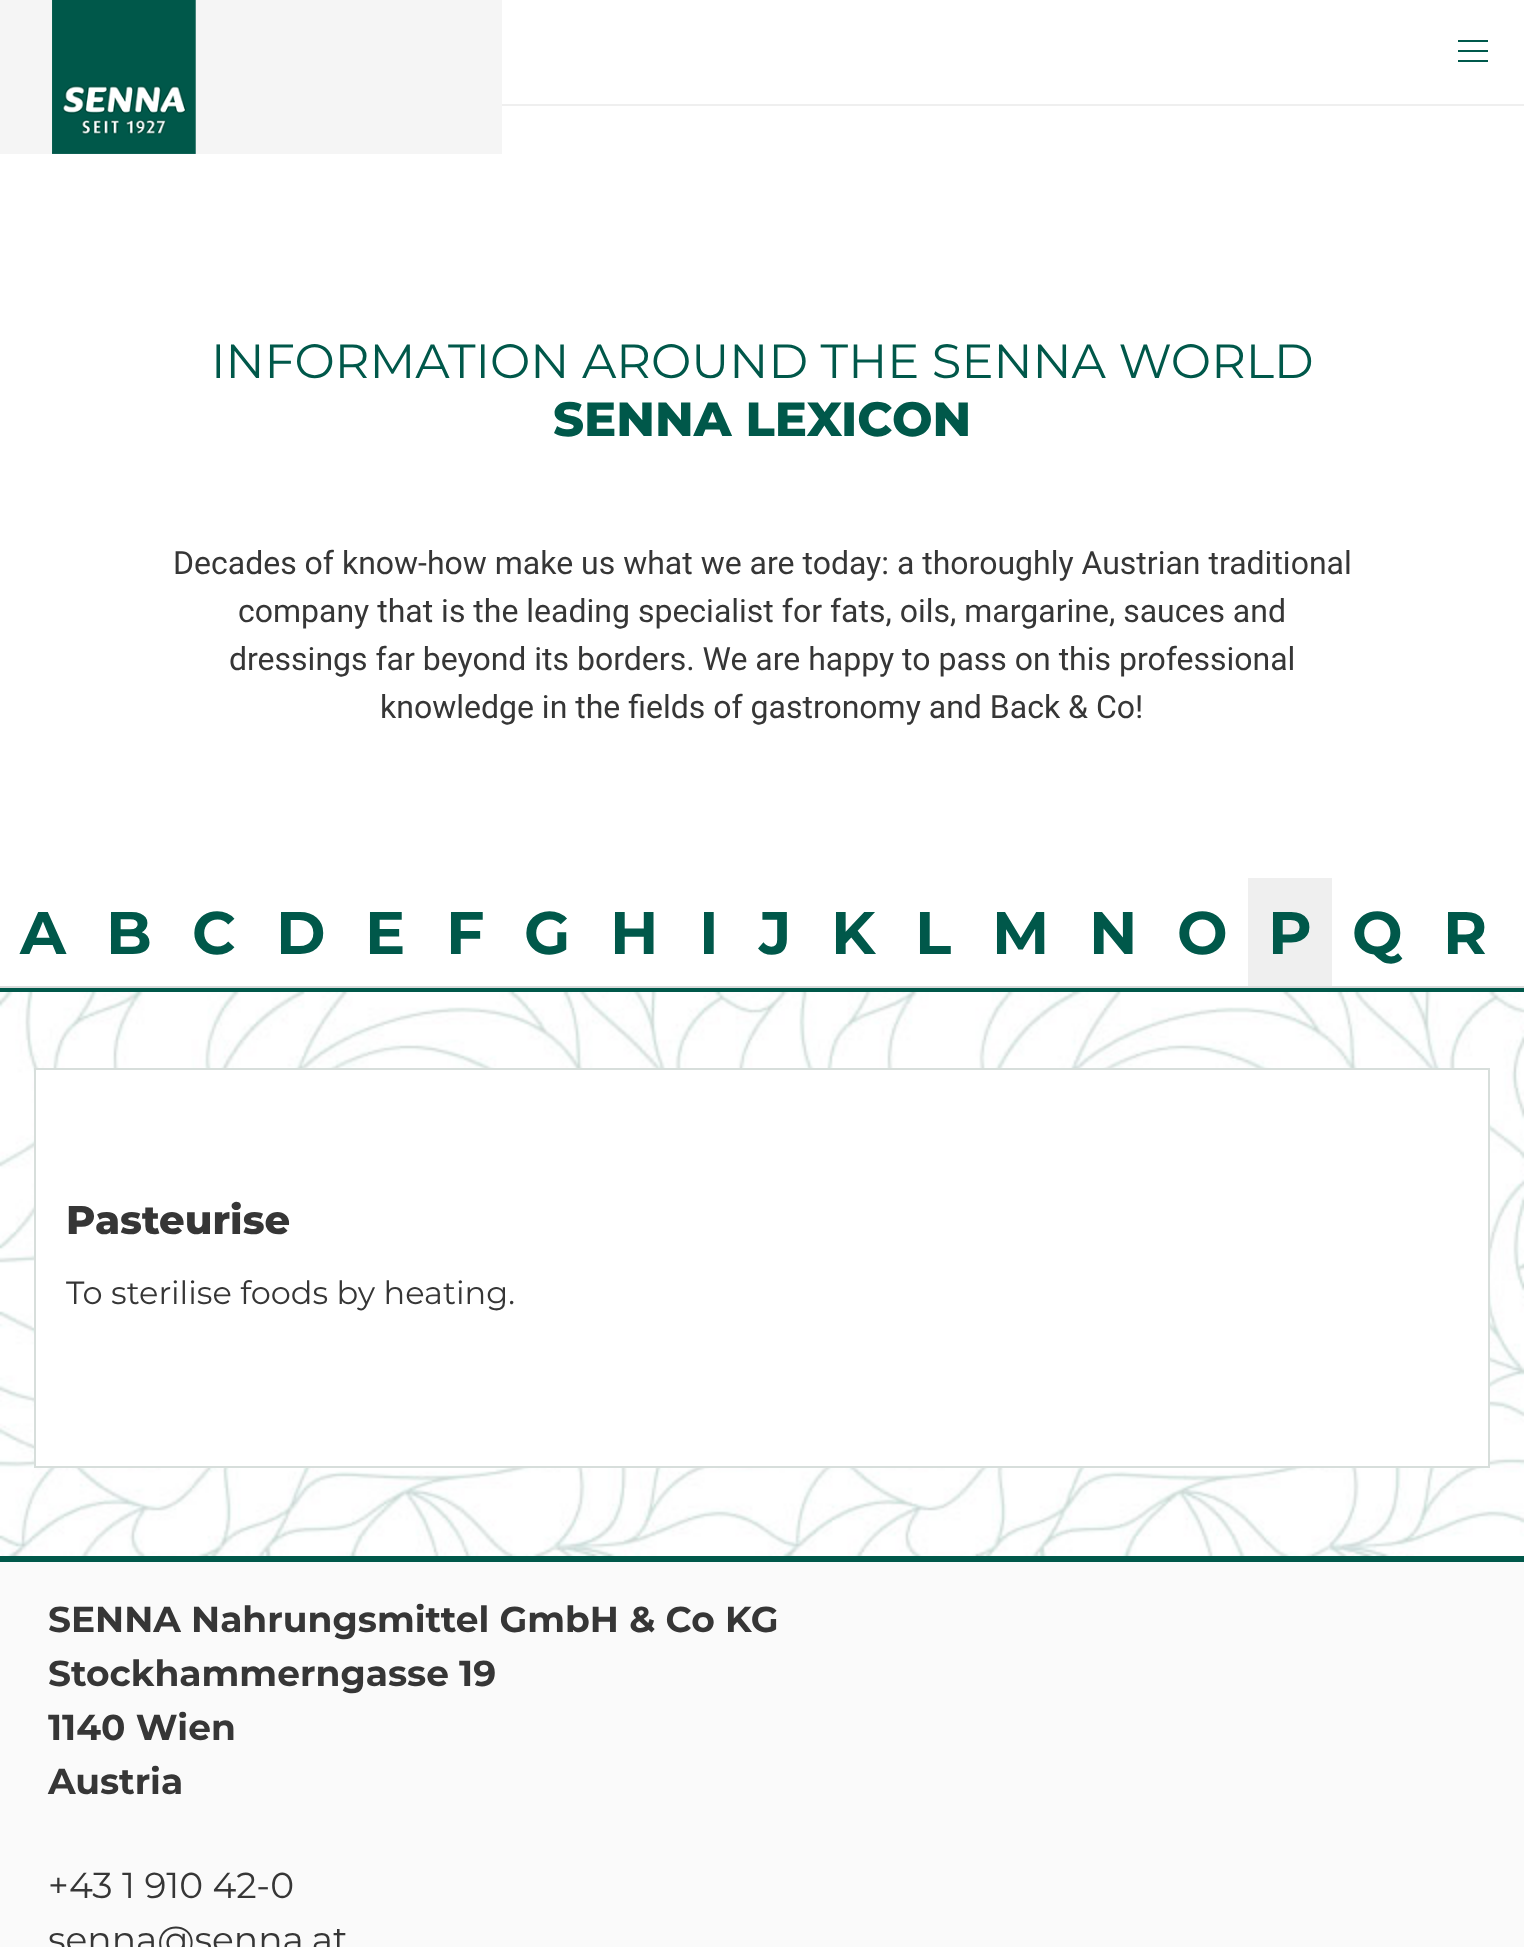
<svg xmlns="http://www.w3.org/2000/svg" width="1524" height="1947">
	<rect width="100%" height="100%" fill="#FFFFFF" />
	<rect x="502" y="104" width="1022" height="2" fill="#EFEFEF" />
	<rect x="0" y="0" width="502" height="154" fill="#F5F5F5" />
	<image x="52" y="0" width="144" height="154" href="assets/img1.png" />
	<rect x="1458" y="40" width="30" height="2" fill="#00594C" />
	<rect x="1458" y="50" width="30" height="2" fill="#00594C" />
	<rect x="1458" y="60" width="30" height="2" fill="#00594C" />
	<text x="211" y="378" font-family="Montserrat" font-size="48" fill="#00584A">INFORMATION AROUND THE SENNA WORLD</text>
	<text x="553" y="436" font-family="Montserrat" font-size="48" font-weight="800" fill="#00584A">SENNA LEXICON</text>
	<g font-family="Roboto" font-size="32" fill="#363636">
		<text x="173" y="574">Decades of know-how make us what we are today: a thoroughly Austrian traditional</text>
		<text x="238" y="622">company that is the leading specialist for fats, oils, margarine, sauces and</text>
		<text x="229" y="670">dressings far beyond its borders. We are happy to pass on this professional</text>
		<text x="380" y="718">knowledge in the fields of gastronomy and Back &amp; Co!</text>
	</g>
	<rect x="0" y="988" width="1524" height="4" fill="#00584A" />
	<rect x="0" y="986" width="1524" height="2" fill="#DBDBDB" />
	<g font-family="Montserrat" font-size="60" font-weight="700" fill="#00584A">
		<text x="20" y="954">A</text>
		<text x="106" y="954">B</text>
		<text x="192" y="954">C</text>
		<text x="276" y="954">D</text>
		<text x="365" y="954">E</text>
		<text x="446" y="954">F</text>
		<text x="524" y="954">G</text>
		<text x="610" y="954">H</text>
		<text x="699" y="954">I</text>
		<text x="759" y="954">J</text>
		<text x="831" y="954">K</text>
		<text x="915" y="954">L</text>
		<text x="992" y="954">M</text>
		<text x="1089" y="954">N</text>
		<text x="1177" y="954">O</text>
	</g>
	<rect x="1248" y="878" width="84" height="108" fill="#EFEFEF" />
	<g font-family="Montserrat" font-size="60" font-weight="700" fill="#00584A">
		<text x="1268" y="954">P</text>
		<text x="1352" y="954">Q</text>
		<text x="1443" y="954">R</text>
	</g>
	<image x="0" y="992" width="1524" height="564" href="assets/img2.png" />
	<rect x="35" y="1069" width="1454" height="398" fill="#FFFFFF" stroke="#D7DEDB" stroke-width="2" />
	<text x="66" y="1234" font-family="Montserrat" font-size="40" font-weight="800" fill="#363636">Pasteurise</text>
	<text x="66" y="1304" font-family="Montserrat" font-size="32" fill="#363636">To sterilise foods by heating.</text>
	<rect x="0" y="1562" width="1524" height="385" fill="#FAFAFA" />
	<rect x="0" y="1556" width="1524" height="6" fill="#00584A" />
	<g font-family="Montserrat" font-size="36" font-weight="700" fill="#363636">
		<text x="48" y="1632">SENNA Nahrungsmittel GmbH &amp; Co KG</text>
		<text x="48" y="1686">Stockhammerngasse 19</text>
		<text x="48" y="1740">1140 Wien</text>
		<text x="48" y="1794">Austria</text>
	</g>
	<g font-family="Montserrat" font-size="36" fill="#363636">
		<text x="48" y="1898">+43 1 910 42-0</text>
		<text x="48" y="1952">senna@senna.at</text>
	</g>
</svg>
